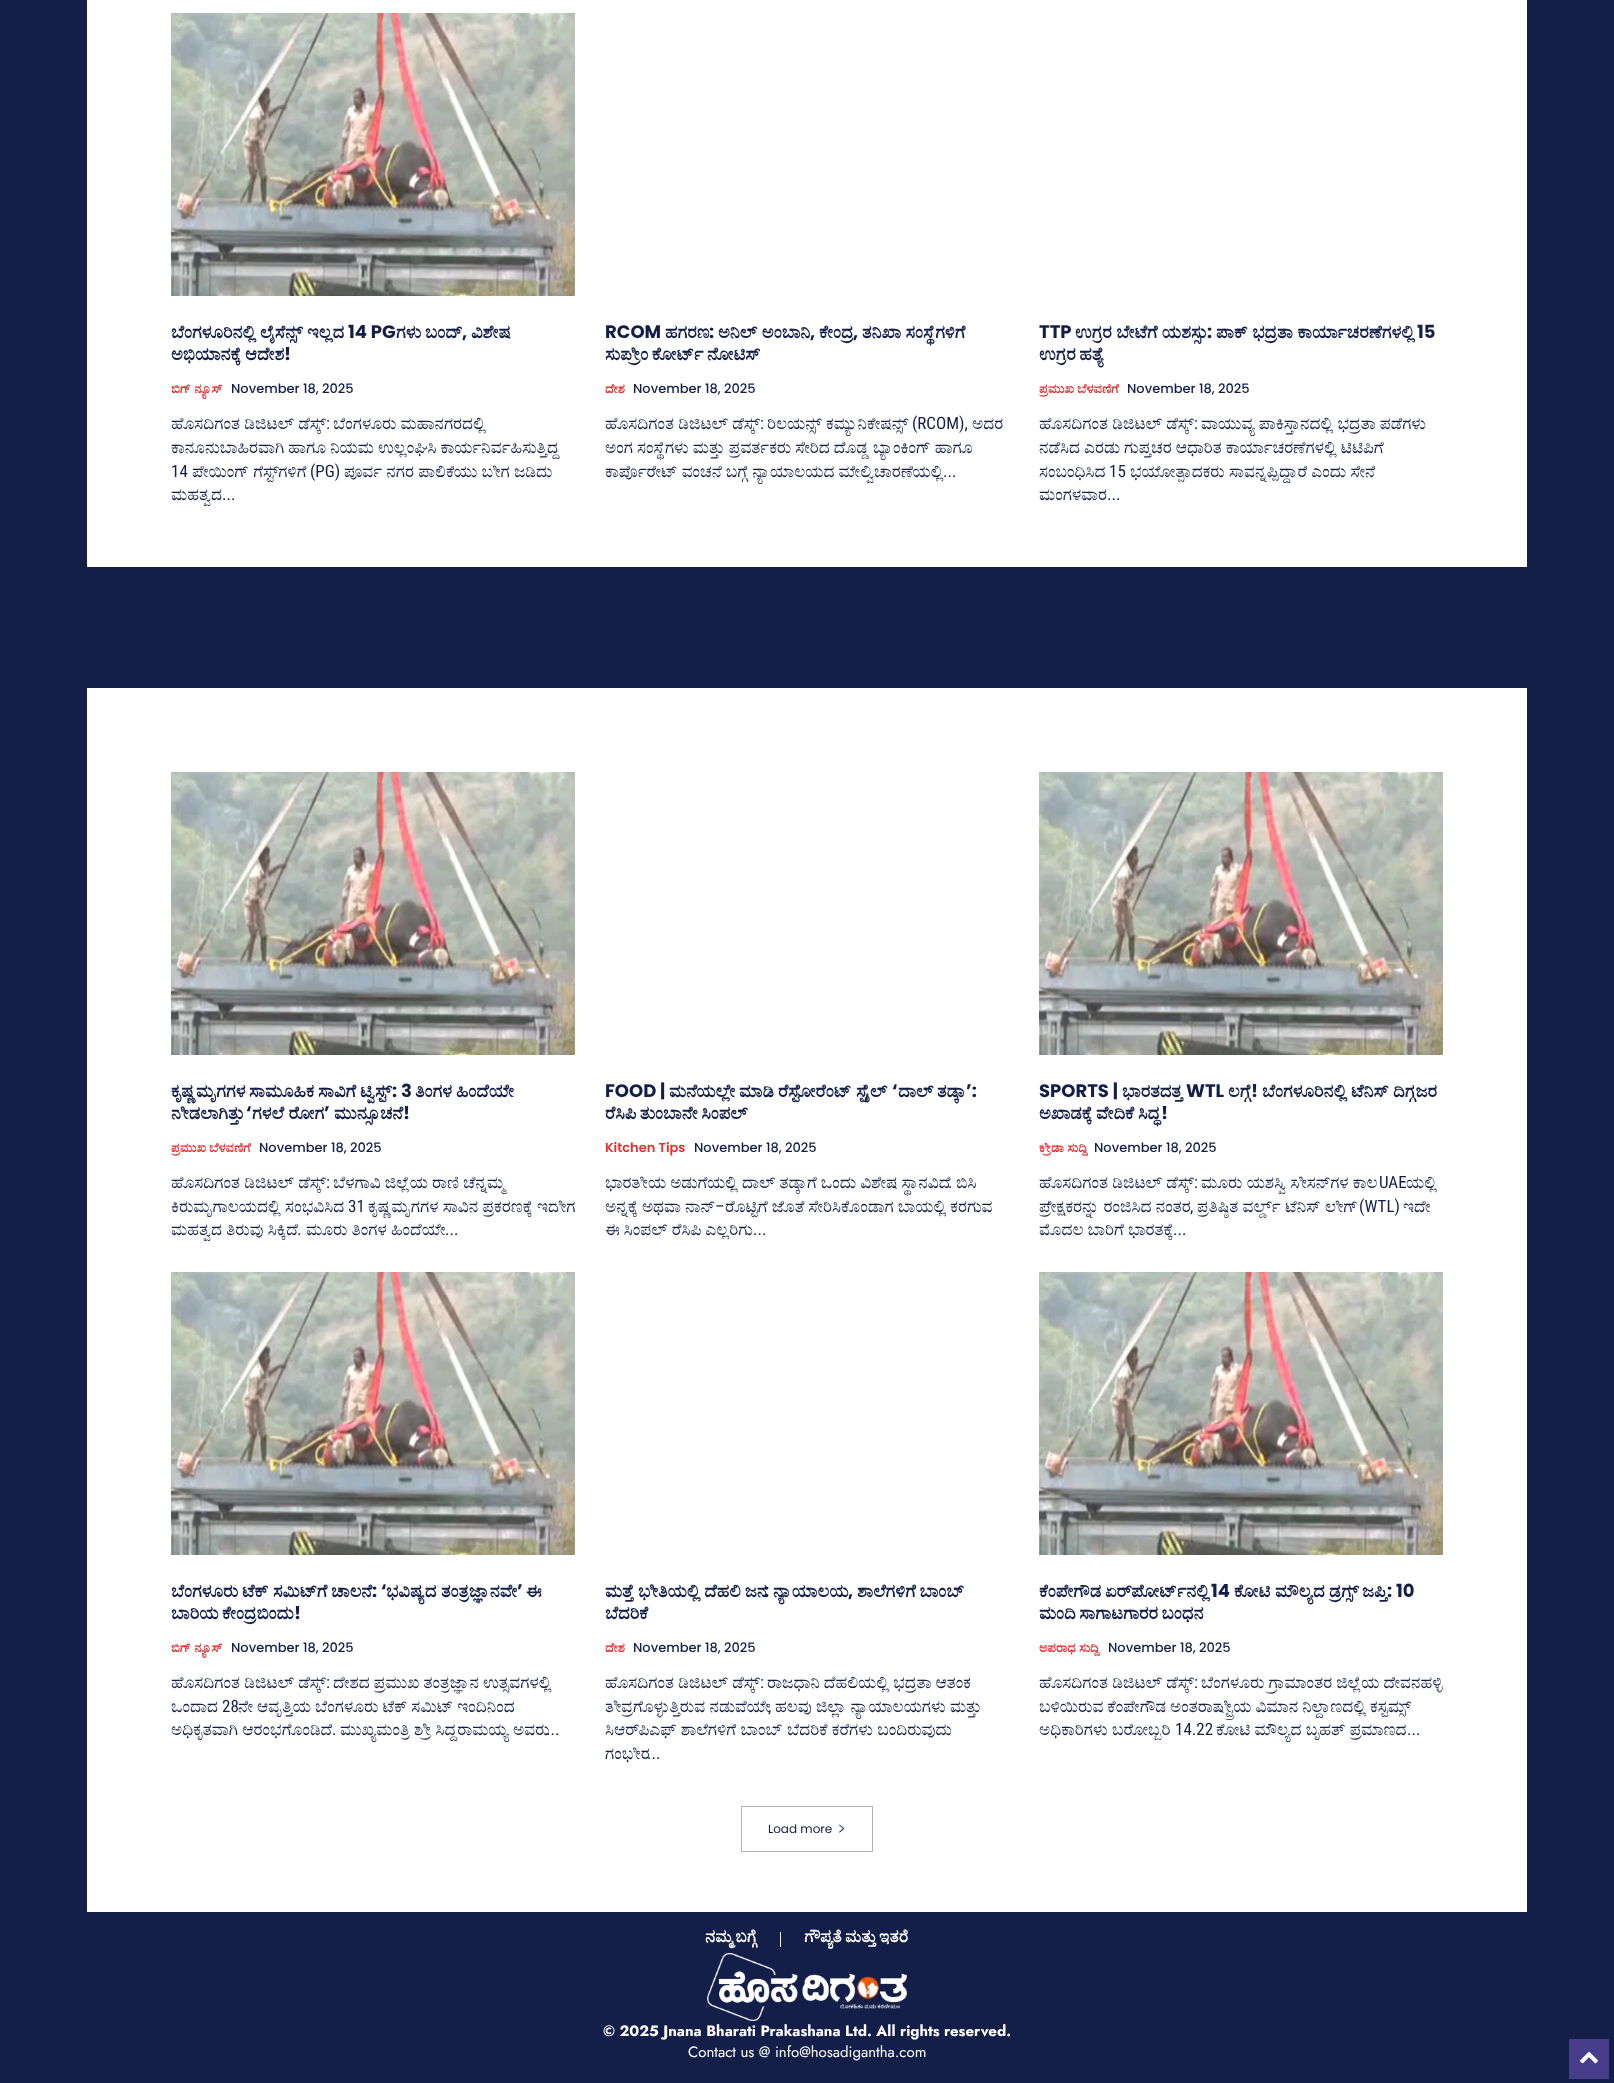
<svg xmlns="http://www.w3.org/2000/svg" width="1614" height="2083">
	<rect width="100%" height="100%" fill="#131F49" />
	<rect x="87" y="0" width="1440" height="567" fill="#FFFFFF" />
	<image x="171" y="13" width="404" height="283" href="assets/img1.png" />
	<g font-family="FreeSerif" font-size="18" font-weight="700" fill="#131F49">
		<text x="171" y="338">ಬೆಂಗಳೂರಿನಲ್ಲಿ</text>
		<text x="260" y="338">ಲೈಸೆನ್ಸ್‌</text>
		<text x="307" y="338">ಇಲ್ಲದ</text>
	</g>
	<text x="348" y="338" font-family="Poppins" font-size="18" font-weight="700" fill="#131F49">14 PG</text>
	<g font-family="FreeSerif" font-size="18" font-weight="700" fill="#131F49">
		<text x="396" y="338">ಗಳು</text>
		<text x="425" y="338">ಬಂದ್</text>
	</g>
	<text x="462" y="338" font-family="Poppins" font-size="18" font-weight="700" fill="#131F49">,</text>
	<g font-family="FreeSerif" font-size="18" font-weight="700" fill="#131F49">
		<text x="471" y="338">ವಿಶೇಷ</text>
		<text x="171" y="360">ಅಭಿಯಾನಕ್ಕೆ</text>
		<text x="245" y="360">ಆದೇಶ</text>
	</g>
	<text x="284" y="360" font-family="Poppins" font-size="18" font-weight="700" fill="#131F49">!</text>
	<text x="171" y="393" font-family="FreeSerif" font-size="13" font-weight="700" fill="#E52E2E">ಬಿಗ್ ನ್ಯೂಸ್</text>
	<text x="231" y="393" font-family="Poppins" font-size="13" font-weight="500" fill="#131F49">November 18, 2025</text>
	<text x="171" y="429" font-family="FreeSerif" font-size="17" fill="#131F49">ಹೊಸದಿಗಂತ ಡಿಜಿಟಲ್ ಡೆಸ್ಕ್</text>
	<text x="326" y="429" font-family="Roboto Condensed" font-size="17" fill="#131F49">:</text>
	<g font-family="FreeSerif" font-size="17" fill="#131F49">
		<text x="333" y="429" word-spacing="-0.25">ಬೆಂಗಳೂರು ಮಹಾನಗರದಲ್ಲಿ</text>
		<text x="171" y="453" word-spacing="-0.25">ಕಾನೂನುಬಾಹಿರವಾಗಿ ಹಾಗೂ ನಿಯಮ ಉಲ್ಲಂಘಿಸಿ ಕಾರ್ಯನಿರ್ವಹಿಸುತ್ತಿದ್ದ</text>
	</g>
	<text x="171" y="477" font-family="Roboto Condensed" font-size="17" fill="#131F49">14</text>
	<text x="192" y="477" font-family="FreeSerif" font-size="17" fill="#131F49">ಪೇಯಿಂಗ್ ಗೆಸ್ಟ್‌ಗಳಿಗೆ</text>
	<text x="310" y="477" font-family="Roboto Condensed" font-size="17" fill="#131F49">(PG)</text>
	<g font-family="FreeSerif" font-size="17" fill="#131F49">
		<text x="344" y="477">ಪೂರ್ವ ನಗರ ಪಾಲಿಕೆಯು ಬೀಗ ಜಡಿದು</text>
		<text x="171" y="500">ಮಹತ್ವದ</text>
	</g>
	<text x="222" y="500" font-family="Roboto Condensed" font-size="17" fill="#131F49">...</text>
	<text x="605" y="338" font-family="Poppins" font-size="18" font-weight="700" fill="#131F49">RCOM</text>
	<text x="665" y="338" font-family="FreeSerif" font-size="18" font-weight="700" fill="#131F49">ಹಗರಣ</text>
	<text x="709" y="338" font-family="Poppins" font-size="18" font-weight="700" fill="#131F49">:</text>
	<text x="718" y="338" font-family="FreeSerif" font-size="18" font-weight="700" fill="#131F49">ಅನಿಲ್ ಅಂಬಾನಿ</text>
	<text x="810" y="338" font-family="Poppins" font-size="18" font-weight="700" fill="#131F49">,</text>
	<text x="819" y="338" font-family="FreeSerif" font-size="18" font-weight="700" fill="#131F49">ಕೇಂದ್ರ</text>
	<text x="853" y="338" font-family="Poppins" font-size="18" font-weight="700" fill="#131F49">,</text>
	<g font-family="FreeSerif" font-size="18" font-weight="700" fill="#131F49">
		<text x="862" y="338">ತನಿಖಾ ಸಂಸ್ಥೆಗಳಿಗೆ</text>
		<text x="605" y="360" word-spacing="-1">ಸುಪ್ರೀಂ ಕೋರ್ಟ್‌ ನೋಟಿಸ್</text>
	</g>
	<text x="605" y="393" font-family="FreeSerif" font-size="13" font-weight="700" fill="#E52E2E">ದೇಶ</text>
	<text x="633" y="393" font-family="Poppins" font-size="13" font-weight="500" fill="#131F49">November 18, 2025</text>
	<text x="605" y="429" font-family="FreeSerif" font-size="17" fill="#131F49">ಹೊಸದಿಗಂತ ಡಿಜಿಟಲ್ ಡೆಸ್ಕ್</text>
	<text x="760" y="429" font-family="Roboto Condensed" font-size="17" fill="#131F49">:</text>
	<text x="767" y="429" font-family="FreeSerif" font-size="17" fill="#131F49">ರಿಲಯನ್ಸ್ ಕಮ್ಯುನಿಕೇಷನ್ಸ್</text>
	<text x="912" y="429" font-family="Roboto Condensed" font-size="17" fill="#131F49">(RCOM),</text>
	<g font-family="FreeSerif" font-size="17" fill="#131F49">
		<text x="972" y="429">ಅದರ</text>
		<text x="605" y="453" word-spacing="-0.25">ಅಂಗ ಸಂಸ್ಥೆಗಳು ಮತ್ತು ಪ್ರವರ್ತಕರು ಸೇರಿದ ದೊಡ್ಡ ಬ್ಯಾಂಕಿಂಗ್ ಹಾಗೂ</text>
		<text x="605" y="477" word-spacing="-0.25">ಕಾರ್ಪೊರೇಟ್ ವಂಚನೆ ಬಗ್ಗೆ ನ್ಯಾಯಾಲಯದ ಮೇಲ್ವಿಚಾರಣೆಯಲ್ಲಿ</text>
	</g>
	<text x="943" y="477" font-family="Roboto Condensed" font-size="17" fill="#131F49">...</text>
	<text x="1039" y="338" font-family="Poppins" font-size="18" font-weight="700" fill="#131F49">TTP</text>
	<text x="1075" y="338" font-family="FreeSerif" font-size="18" font-weight="700" fill="#131F49">ಉಗ್ರರ ಬೇಟೆಗೆ ಯಶಸ್ಸು</text>
	<text x="1207" y="338" font-family="Poppins" font-size="18" font-weight="700" fill="#131F49">:</text>
	<text x="1216" y="338" font-family="FreeSerif" font-size="18" font-weight="700" fill="#131F49">ಪಾಕ್ ಭದ್ರತಾ ಕಾರ್ಯಾಚರಣೆಗಳಲ್ಲಿ</text>
	<text x="1417" y="338" font-family="Poppins" font-size="18" font-weight="700" fill="#131F49">15</text>
	<text x="1039" y="360" word-spacing="-1" font-family="FreeSerif" font-size="18" font-weight="700" fill="#131F49">ಉಗ್ರರ ಹತ್ಯೆ</text>
	<text x="1039" y="393" font-family="FreeSerif" font-size="13" font-weight="700" fill="#E52E2E">ಪ್ರಮುಖ ಬೆಳವಣಿಗೆ</text>
	<text x="1127" y="393" font-family="Poppins" font-size="13" font-weight="500" fill="#131F49">November 18, 2025</text>
	<text x="1039" y="429" font-family="FreeSerif" font-size="17" fill="#131F49">ಹೊಸದಿಗಂತ ಡಿಜಿಟಲ್ ಡೆಸ್ಕ್</text>
	<text x="1194" y="429" font-family="Roboto Condensed" font-size="17" fill="#131F49">:</text>
	<g font-family="FreeSerif" font-size="17" fill="#131F49">
		<text x="1201" y="429" word-spacing="-0.25">ವಾಯುವ್ಯ ಪಾಕಿಸ್ತಾನದಲ್ಲಿ ಭದ್ರತಾ ಪಡೆಗಳು</text>
		<text x="1039" y="453" word-spacing="-0.25">ನಡೆಸಿದ ಎರಡು ಗುಪ್ತಚರ ಆಧಾರಿತ ಕಾರ್ಯಾಚರಣೆಗಳಲ್ಲಿ ಟಿಟಿಪಿಗೆ</text>
		<text x="1039" y="477">ಸಂಬಂಧಿಸಿದ</text>
	</g>
	<text x="1109" y="477" font-family="Roboto Condensed" font-size="17" fill="#131F49">15</text>
	<g font-family="FreeSerif" font-size="17" fill="#131F49">
		<text x="1130" y="477">ಭಯೋತ್ಪಾದಕರು ಸಾವನ್ನಪ್ಪಿದ್ದಾರೆ ಎಂದು ಸೇನೆ</text>
		<text x="1039" y="500">ಮಂಗಳವಾರ</text>
	</g>
	<text x="1107" y="500" font-family="Roboto Condensed" font-size="17" fill="#131F49">...</text>
	<rect x="87" y="688" width="1440" height="1224" fill="#FFFFFF" />
	<image x="171" y="772" width="404" height="283" href="assets/img2.png" />
	<g font-family="FreeSerif" font-size="18" font-weight="700" fill="#131F49">
		<text x="171" y="1097">ಕೃಷ್ಣಮೃಗಗಳ</text>
		<text x="249" y="1097">ಸಾಮೂಹಿಕ</text>
		<text x="318" y="1097">ಸಾವಿಗೆ</text>
		<text x="360" y="1097">ಟ್ವಿಸ್ಟ್</text>
	</g>
	<text x="392" y="1097" font-family="Poppins" font-size="18" font-weight="700" fill="#131F49">: 3</text>
	<g font-family="FreeSerif" font-size="18" font-weight="700" fill="#131F49">
		<text x="415" y="1097">ತಿಂಗಳ</text>
		<text x="456" y="1097">ಹಿಂದೆಯೇ</text>
		<text x="171" y="1119">ನೀಡಲಾಗಿತ್ತು</text>
	</g>
	<text x="246" y="1119" font-family="Poppins" font-size="18" font-weight="700" fill="#131F49">‘</text>
	<text x="252" y="1119" font-family="FreeSerif" font-size="18" font-weight="700" fill="#131F49">ಗಳಲೆ ರೋಗ</text>
	<text x="324" y="1119" font-family="Poppins" font-size="18" font-weight="700" fill="#131F49">’</text>
	<text x="334" y="1119" font-family="FreeSerif" font-size="18" font-weight="700" fill="#131F49">ಮುನ್ಸೂಚನೆ</text>
	<text x="403" y="1119" font-family="Poppins" font-size="18" font-weight="700" fill="#131F49">!</text>
	<text x="171" y="1152" font-family="FreeSerif" font-size="13" font-weight="700" fill="#E52E2E">ಪ್ರಮುಖ ಬೆಳವಣಿಗೆ</text>
	<text x="259" y="1152" font-family="Poppins" font-size="13" font-weight="500" fill="#131F49">November 18, 2025</text>
	<text x="171" y="1188" font-family="FreeSerif" font-size="17" fill="#131F49">ಹೊಸದಿಗಂತ ಡಿಜಿಟಲ್ ಡೆಸ್ಕ್</text>
	<text x="326" y="1188" font-family="Roboto Condensed" font-size="17" fill="#131F49">:</text>
	<g font-family="FreeSerif" font-size="17" fill="#131F49">
		<text x="333" y="1188" word-spacing="-0.25">ಬೆಳಗಾವಿ ಜಿಲ್ಲೆಯ ರಾಣಿ ಚೆನ್ನಮ್ಮ</text>
		<text x="171" y="1212">ಕಿರುಮೃಗಾಲಯದಲ್ಲಿ ಸಂಭವಿಸಿದ</text>
	</g>
	<text x="348" y="1212" font-family="Roboto Condensed" font-size="17" fill="#131F49">31</text>
	<g font-family="FreeSerif" font-size="17" fill="#131F49">
		<text x="368" y="1212">ಕೃಷ್ಣಮೃಗಗಳ ಸಾವಿನ ಪ್ರಕರಣಕ್ಕೆ ಇದೀಗ</text>
		<text x="171" y="1235">ಮಹತ್ವದ ತಿರುವು ಸಿಕ್ಕಿದೆ</text>
	</g>
	<text x="297" y="1235" font-family="Roboto Condensed" font-size="17" fill="#131F49">.</text>
	<text x="306" y="1235" font-family="FreeSerif" font-size="17" fill="#131F49">ಮೂರು ತಿಂಗಳ ಹಿಂದೆಯೇ</text>
	<text x="445" y="1235" font-family="Roboto Condensed" font-size="17" fill="#131F49">...</text>
	<text x="605" y="1097" font-family="Poppins" font-size="18" font-weight="700" fill="#131F49">FOOD |</text>
	<g font-family="FreeSerif" font-size="18" font-weight="700" fill="#131F49">
		<text x="669" y="1097">ಮನೆಯಲ್ಲೇ</text>
		<text x="739" y="1097">ಮಾಡಿ</text>
		<text x="778" y="1097">ರೆಸ್ಟೋರೆಂಟ್</text>
		<text x="856" y="1097">ಸ್ಟೈಲ್</text>
	</g>
	<g font-family="Poppins" font-size="18" font-weight="700" fill="#131F49">
		<text x="892" y="1097">‘</text>
		<text x="966" y="1097">’:</text>
	</g>
	<g font-family="FreeSerif" font-size="18" font-weight="700" fill="#131F49">
		<text x="898" y="1097">ದಾಲ್</text>
		<text x="937" y="1097">ತಡ್ಕಾ</text>
		<text x="605" y="1119" word-spacing="-1">ರೆಸಿಪಿ ತುಂಬಾನೇ ಸಿಂಪಲ್</text>
	</g>
	<text x="605" y="1152" font-family="Poppins" font-size="13" font-weight="600" fill="#E52E2E">Kitchen Tips</text>
	<text x="694" y="1152" font-family="Poppins" font-size="13" font-weight="500" fill="#131F49">November 18, 2025</text>
	<text x="605" y="1188" word-spacing="-0.25" font-family="FreeSerif" font-size="17" fill="#131F49">ಭಾರತೀಯ ಅಡುಗೆಯಲ್ಲಿ ದಾಲ್ ತಡ್ಕಾಗೆ ಒಂದು ವಿಶೇಷ ಸ್ಥಾನವಿದೆ</text>
	<text x="948" y="1188" font-family="Roboto Condensed" font-size="17" fill="#131F49">.</text>
	<g font-family="FreeSerif" font-size="17" fill="#131F49">
		<text x="956" y="1188">ಬಿಸಿ</text>
		<text x="605" y="1212" word-spacing="-0.25">ಅನ್ನಕ್ಕೆ ಅಥವಾ ನಾನ್</text>
	</g>
	<text x="715" y="1212" font-family="Roboto Condensed" font-size="17" fill="#131F49">–</text>
	<g font-family="FreeSerif" font-size="17" fill="#131F49">
		<text x="725" y="1212" word-spacing="-0.25">ರೊಟ್ಟಿಗೆ ಜೊತೆ ಸೇರಿಸಿಕೊಂಡಾಗ ಬಾಯಲ್ಲಿ ಕರಗುವ</text>
		<text x="605" y="1235" word-spacing="-0.25">ಈ ಸಿಂಪಲ್ ರೆಸಿಪಿ ಎಲ್ಲರಿಗು</text>
	</g>
	<text x="753" y="1235" font-family="Roboto Condensed" font-size="17" fill="#131F49">...</text>
	<image x="1039" y="772" width="404" height="283" href="assets/img2.png" />
	<text x="1039" y="1097" font-family="Poppins" font-size="18" font-weight="700" fill="#131F49">SPORTS |</text>
	<text x="1122" y="1097" font-family="FreeSerif" font-size="18" font-weight="700" fill="#131F49">ಭಾರತದತ್ತ</text>
	<text x="1186" y="1097" font-family="Poppins" font-size="18" font-weight="700" fill="#131F49">WTL</text>
	<text x="1228" y="1097" font-family="FreeSerif" font-size="18" font-weight="700" fill="#131F49">ಲಗ್ಗೆ</text>
	<text x="1251" y="1097" font-family="Poppins" font-size="18" font-weight="700" fill="#131F49">!</text>
	<g font-family="FreeSerif" font-size="18" font-weight="700" fill="#131F49">
		<text x="1262" y="1097">ಬೆಂಗಳೂರಿನಲ್ಲಿ</text>
		<text x="1351" y="1097">ಟೆನಿಸ್</text>
		<text x="1393" y="1097">ದಿಗ್ಗಜರ</text>
		<text x="1039" y="1119">ಅಖಾಡಕ್ಕೆ</text>
		<text x="1096" y="1119">ವೇದಿಕೆ</text>
		<text x="1138" y="1119">ಸಿದ್ಧ</text>
	</g>
	<text x="1161" y="1119" font-family="Poppins" font-size="18" font-weight="700" fill="#131F49">!</text>
	<text x="1039" y="1152" font-family="FreeSerif" font-size="13" font-weight="700" fill="#E52E2E">ಕ್ರೀಡಾ ಸುದ್ದಿ</text>
	<text x="1094" y="1152" font-family="Poppins" font-size="13" font-weight="500" fill="#131F49">November 18, 2025</text>
	<text x="1039" y="1188" font-family="FreeSerif" font-size="17" fill="#131F49">ಹೊಸದಿಗಂತ ಡಿಜಿಟಲ್ ಡೆಸ್ಕ್</text>
	<text x="1194" y="1188" font-family="Roboto Condensed" font-size="17" fill="#131F49">:</text>
	<text x="1201" y="1188" font-family="FreeSerif" font-size="17" fill="#131F49">ಮೂರು ಯಶಸ್ವಿ ಸೀಸನ್‌ಗಳ ಕಾಲ</text>
	<text x="1379" y="1188" font-family="Roboto Condensed" font-size="17" fill="#131F49">UAE</text>
	<g font-family="FreeSerif" font-size="17" fill="#131F49">
		<text x="1406" y="1188">ಯಲ್ಲಿ</text>
		<text x="1039" y="1212">ಪ್ರೇಕ್ಷಕರನ್ನು ರಂಜಿಸಿದ ನಂತರ</text>
	</g>
	<text x="1190" y="1212" font-family="Roboto Condensed" font-size="17" fill="#131F49">,</text>
	<text x="1197" y="1212" font-family="FreeSerif" font-size="17" fill="#131F49">ಪ್ರತಿಷ್ಠಿತ ವರ್ಲ್ಡ್ ಟೆನಿಸ್ ಲೀಗ್</text>
	<text x="1359" y="1212" font-family="Roboto Condensed" font-size="17" fill="#131F49">(WTL)</text>
	<g font-family="FreeSerif" font-size="17" fill="#131F49">
		<text x="1403" y="1212">ಇದೇ</text>
		<text x="1039" y="1235" word-spacing="-0.25">ಮೊದಲ ಬಾರಿಗೆ ಭಾರತಕ್ಕೆ</text>
	</g>
	<text x="1173" y="1235" font-family="Roboto Condensed" font-size="17" fill="#131F49">...</text>
	<image x="171" y="1272" width="404" height="283" href="assets/img3.png" />
	<g font-family="FreeSerif" font-size="18" font-weight="700" fill="#131F49">
		<text x="171" y="1597">ಬೆಂಗಳೂರು</text>
		<text x="242" y="1597">ಟೆಕ್</text>
		<text x="273" y="1597">ಸಮಿಟ್‌ಗೆ</text>
		<text x="331" y="1597">ಚಾಲನೆ</text>
	</g>
	<text x="372" y="1597" font-family="Poppins" font-size="18" font-weight="700" fill="#131F49">: ‘</text>
	<g font-family="FreeSerif" font-size="18" font-weight="700" fill="#131F49">
		<text x="386" y="1597">ಭವಿಷ್ಯದ</text>
		<text x="441" y="1597">ತಂತ್ರಜ್ಞಾನವೇ</text>
	</g>
	<text x="517" y="1597" font-family="Poppins" font-size="18" font-weight="700" fill="#131F49">’</text>
	<g font-family="FreeSerif" font-size="18" font-weight="700" fill="#131F49">
		<text x="526" y="1597">ಈ</text>
		<text x="171" y="1619">ಬಾರಿಯ</text>
		<text x="222" y="1619">ಕೇಂದ್ರಬಿಂದು</text>
	</g>
	<text x="294" y="1619" font-family="Poppins" font-size="18" font-weight="700" fill="#131F49">!</text>
	<text x="171" y="1652" font-family="FreeSerif" font-size="13" font-weight="700" fill="#E52E2E">ಬಿಗ್ ನ್ಯೂಸ್</text>
	<text x="231" y="1652" font-family="Poppins" font-size="13" font-weight="500" fill="#131F49">November 18, 2025</text>
	<text x="171" y="1688" font-family="FreeSerif" font-size="17" fill="#131F49">ಹೊಸದಿಗಂತ ಡಿಜಿಟಲ್ ಡೆಸ್ಕ್</text>
	<text x="326" y="1688" font-family="Roboto Condensed" font-size="17" fill="#131F49">:</text>
	<g font-family="FreeSerif" font-size="17" fill="#131F49">
		<text x="333" y="1688" word-spacing="-0.25">ದೇಶದ ಪ್ರಮುಖ ತಂತ್ರಜ್ಞಾನ ಉತ್ಸವಗಳಲ್ಲಿ</text>
		<text x="171" y="1712">ಒಂದಾದ</text>
	</g>
	<text x="222" y="1712" font-family="Roboto Condensed" font-size="17" fill="#131F49">28</text>
	<g font-family="FreeSerif" font-size="17" fill="#131F49">
		<text x="238" y="1712" word-spacing="-0.25">ನೇ ಆವೃತ್ತಿಯ ಬೆಂಗಳೂರು ಟೆಕ್ ಸಮಿಟ್ ಇಂದಿನಿಂದ</text>
		<text x="171" y="1735">ಅಧಿಕೃತವಾಗಿ ಆರಂಭಗೊಂಡಿದೆ</text>
	</g>
	<text x="332" y="1735" font-family="Roboto Condensed" font-size="17" fill="#131F49">.</text>
	<text x="340" y="1735" font-family="FreeSerif" font-size="17" fill="#131F49">ಮುಖ್ಯಮಂತ್ರಿ ಶ್ರೀ ಸಿದ್ದರಾಮಯ್ಯ ಅವರು</text>
	<text x="546" y="1735" font-family="Roboto Condensed" font-size="17" fill="#131F49">...</text>
	<text x="605" y="1597" word-spacing="-0.5" font-family="FreeSerif" font-size="18" font-weight="700" fill="#131F49">ಮತ್ತೆ ಭೀತಿಯಲ್ಲಿ ದೆಹಲಿ ಜನ</text>
	<text x="764" y="1597" font-family="Poppins" font-size="18" font-weight="700" fill="#131F49">:</text>
	<text x="773" y="1597" font-family="FreeSerif" font-size="18" font-weight="700" fill="#131F49">ನ್ಯಾಯಾಲಯ</text>
	<text x="848" y="1597" font-family="Poppins" font-size="18" font-weight="700" fill="#131F49">,</text>
	<g font-family="FreeSerif" font-size="18" font-weight="700" fill="#131F49">
		<text x="857" y="1597" word-spacing="-0.5">ಶಾಲೆಗಳಿಗೆ ಬಾಂಬ್</text>
		<text x="605" y="1619">ಬೆದರಿಕೆ</text>
	</g>
	<text x="605" y="1652" font-family="FreeSerif" font-size="13" font-weight="700" fill="#E52E2E">ದೇಶ</text>
	<text x="633" y="1652" font-family="Poppins" font-size="13" font-weight="500" fill="#131F49">November 18, 2025</text>
	<text x="605" y="1688" font-family="FreeSerif" font-size="17" fill="#131F49">ಹೊಸದಿಗಂತ ಡಿಜಿಟಲ್ ಡೆಸ್ಕ್</text>
	<text x="760" y="1688" font-family="Roboto Condensed" font-size="17" fill="#131F49">:</text>
	<g font-family="FreeSerif" font-size="17" fill="#131F49">
		<text x="767" y="1688" word-spacing="-0.25">ರಾಜಧಾನಿ ದೆಹಲಿಯಲ್ಲಿ ಭದ್ರತಾ ಆತಂಕ</text>
		<text x="605" y="1712">ತೀವ್ರಗೊಳ್ಳುತ್ತಿರುವ ನಡುವೆಯೇ</text>
	</g>
	<text x="768" y="1712" font-family="Roboto Condensed" font-size="17" fill="#131F49">,</text>
	<g font-family="FreeSerif" font-size="17" fill="#131F49">
		<text x="775" y="1712">ಹಲವು ಜಿಲ್ಲಾ ನ್ಯಾಯಾಲಯಗಳು ಮತ್ತು</text>
		<text x="605" y="1735">ಸಿಆರ್‌ಪಿಎಫ್ ಶಾಲೆಗಳಿಗೆ ಬಾಂಬ್ ಬೆದರಿಕೆ ಕರೆಗಳು ಬಂದಿರುವುದು</text>
		<text x="605" y="1759">ಗಂಭೀರ</text>
	</g>
	<text x="647" y="1759" font-family="Roboto Condensed" font-size="17" fill="#131F49">...</text>
	<image x="1039" y="1272" width="404" height="283" href="assets/img3.png" />
	<g font-family="FreeSerif" font-size="18" font-weight="700" fill="#131F49">
		<text x="1039" y="1597">ಕೆಂಪೇಗೌಡ</text>
		<text x="1105" y="1597">ಏರ್‌ಪೋರ್ಟ್‌ನಲ್ಲಿ</text>
	</g>
	<text x="1211" y="1597" font-family="Poppins" font-size="18" font-weight="700" fill="#131F49">14</text>
	<g font-family="FreeSerif" font-size="18" font-weight="700" fill="#131F49">
		<text x="1234" y="1597">ಕೋಟಿ</text>
		<text x="1275" y="1597">ಮೌಲ್ಯದ</text>
		<text x="1329" y="1597">ಡ್ರಗ್ಸ್</text>
		<text x="1362" y="1597">ಜಪ್ತಿ</text>
	</g>
	<text x="1387" y="1597" font-family="Poppins" font-size="18" font-weight="700" fill="#131F49">: 10</text>
	<text x="1039" y="1619" word-spacing="-1" font-family="FreeSerif" font-size="18" font-weight="700" fill="#131F49">ಮಂದಿ ಸಾಗಾಟಗಾರರ ಬಂಧನ</text>
	<text x="1039" y="1652" font-family="FreeSerif" font-size="13" font-weight="700" fill="#E52E2E">ಅಪರಾಧ ಸುದ್ದಿ</text>
	<text x="1108" y="1652" font-family="Poppins" font-size="13" font-weight="500" fill="#131F49">November 18, 2025</text>
	<text x="1039" y="1688" font-family="FreeSerif" font-size="17" fill="#131F49">ಹೊಸದಿಗಂತ ಡಿಜಿಟಲ್ ಡೆಸ್ಕ್</text>
	<text x="1194" y="1688" font-family="Roboto Condensed" font-size="17" fill="#131F49">:</text>
	<g font-family="FreeSerif" font-size="17" fill="#131F49">
		<text x="1201" y="1688" word-spacing="-0.25">ಬೆಂಗಳೂರು ಗ್ರಾಮಾಂತರ ಜಿಲ್ಲೆಯ ದೇವನಹಳ್ಳಿ</text>
		<text x="1039" y="1712" word-spacing="-0.25">ಬಳಿಯಿರುವ ಕೆಂಪೇಗೌಡ ಅಂತರಾಷ್ಟ್ರೀಯ ವಿಮಾನ ನಿಲ್ದಾಣದಲ್ಲಿ ಕಸ್ಟಮ್ಸ್</text>
		<text x="1039" y="1735">ಅಧಿಕಾರಿಗಳು ಬರೋಬ್ಬರಿ</text>
	</g>
	<text x="1175" y="1735" font-family="Roboto Condensed" font-size="17" fill="#131F49">14.22</text>
	<text x="1216" y="1735" font-family="FreeSerif" font-size="17" fill="#131F49">ಕೋಟಿ ಮೌಲ್ಯದ ಬೃಹತ್ ಪ್ರಮಾಣದ</text>
	<text x="1407" y="1735" font-family="Roboto Condensed" font-size="17" fill="#131F49">...</text>
	<rect x="741.5" y="1806.5" width="131" height="45" fill="none" stroke="#B1B4BC" />
	<text x="768" y="1833" font-family="Poppins" font-size="12" fill="#131F49">Load more</text>
	<image x="839" y="1824" width="6" height="9" href="assets/img4.png" />
	<text x="705" y="1942" font-family="Noto Serif Kannada" font-size="15" font-weight="700" fill="#FFFFFF">ನಮ್ಮ ಬಗ್ಗೆ</text>
	<rect x="780" y="1932" width="1" height="15" fill="#F1F4F7" />
	<text x="804" y="1942" font-family="Noto Serif Kannada" font-size="15" font-weight="700" fill="#FFFFFF">ಗೌಪ್ಯತೆ ಮತ್ತು ಇತರೆ</text>
	<image x="707" y="1953" width="200" height="68" href="assets/img5.png" />
	<text x="603" y="2036" font-family="Jost" font-size="15" font-weight="700" fill="#FFFFFF">© 2025 Jnana Bharati Prakashana Ltd. All rights reserved.</text>
	<text x="688" y="2057" font-family="Jost" font-size="15" fill="#FFFFFF">Contact us @ info@hosadigantha.com</text>
	<rect x="1569" y="2039" width="40" height="40" fill="#483D8B" />
	<image x="1580" y="2051" width="18" height="13" href="assets/img6.png" />
</svg>
